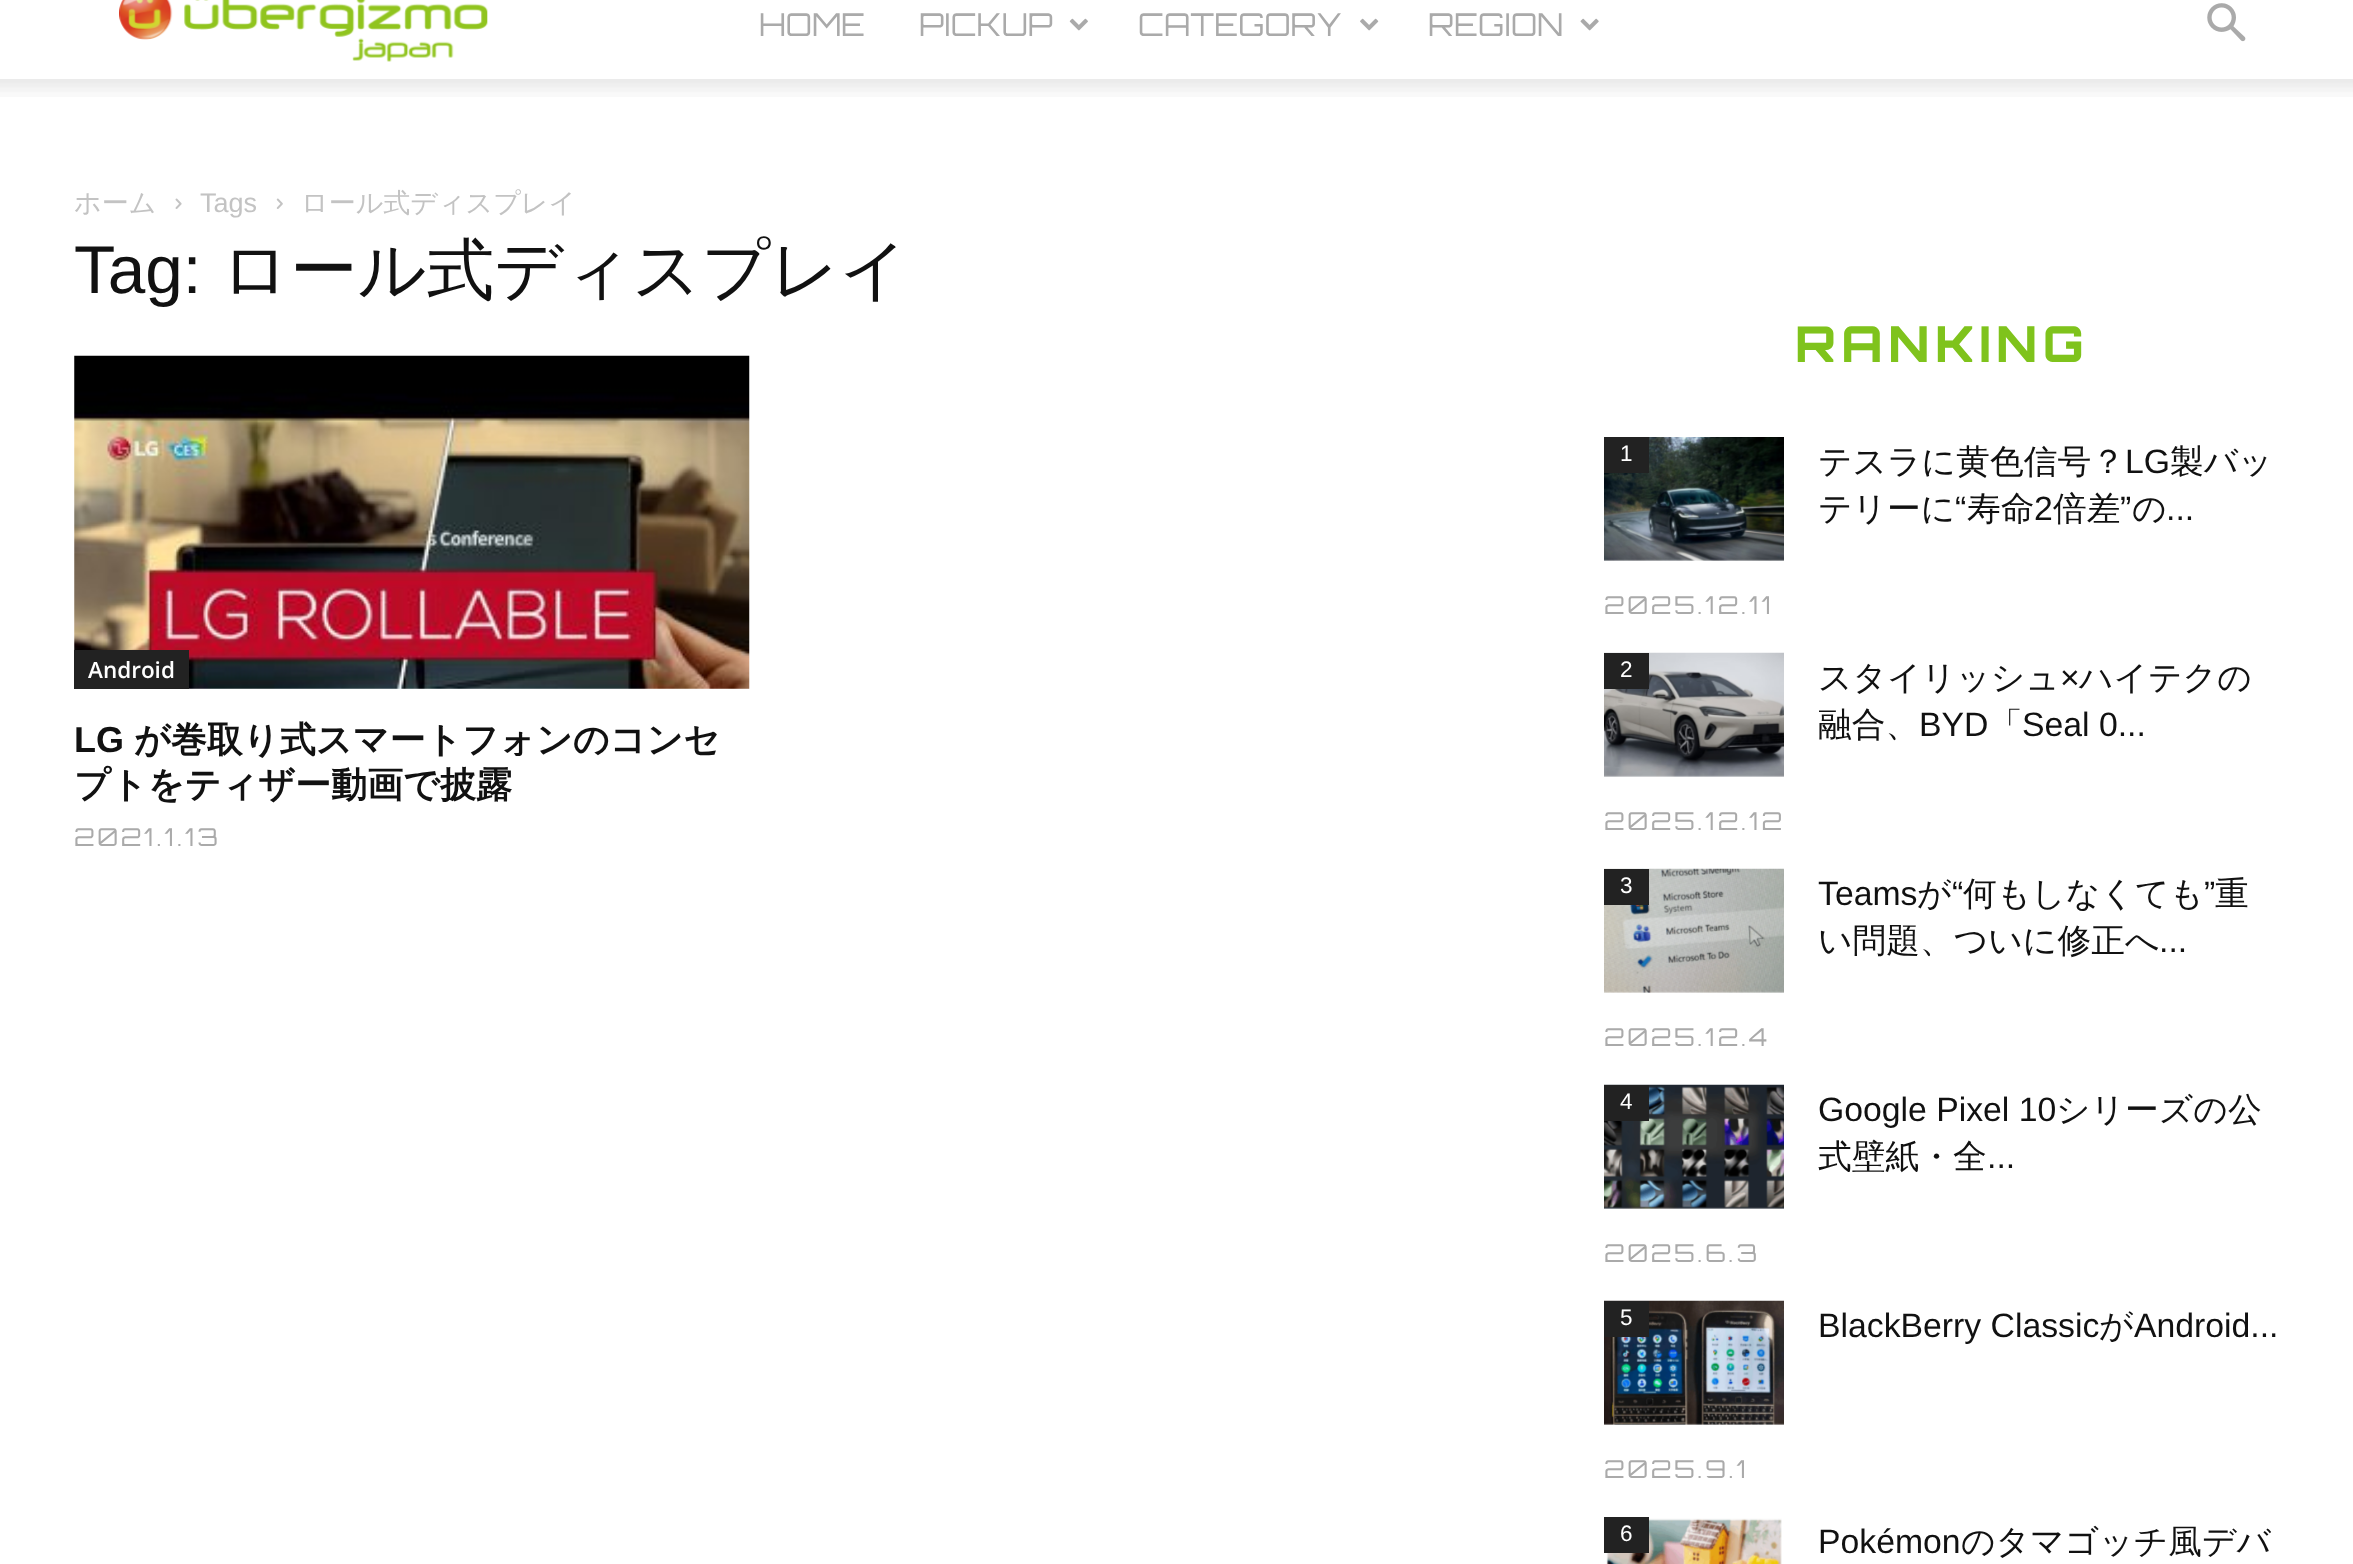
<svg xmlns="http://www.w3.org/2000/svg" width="2353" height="1564">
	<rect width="100%" height="100%" fill="#FFFFFF" />
	<image x="119" y="0" width="369" height="62" href="assets/img1.png" />
	<g font-family="Orbitron" font-size="31.5" fill="#AAAAAA">
		<text x="759" y="36">HOME</text>
		<text x="919" y="36">PICKUP</text>
	</g>
	<image x="1069" y="18" width="19" height="13" href="assets/img2.png" />
	<text x="1138" y="36" font-family="Orbitron" font-size="31.5" fill="#AAAAAA">CATEGORY</text>
	<image x="1360" y="18" width="19" height="13" href="assets/img3.png" />
	<text x="1428" y="36" font-family="Orbitron" font-size="31.5" fill="#AAAAAA">REGION</text>
	<image x="1580" y="18" width="19" height="13" href="assets/img4.png" />
	<image x="2207" y="3" width="39" height="39" href="assets/img5.png" />
	<image x="0" y="79" width="2353" height="18" href="assets/img6.png" />
	<text x="74" y="212" font-family="WenQuanYi Zen Hei" font-size="27" font-weight="500" fill="#C3C3C3">ホーム</text>
	<image x="175" y="198" width="7" height="11" href="assets/img7.png" />
	<text x="200" y="212" font-family="Liberation Sans" font-size="27" fill="#C3C3C3">Tags</text>
	<image x="276" y="198" width="7" height="11" href="assets/img8.png" />
	<text x="301" y="212" font-family="WenQuanYi Zen Hei" font-size="27" font-weight="500" fill="#C3C3C3">ロール式ディスプレイ</text>
	<text x="74" y="293" font-family="Liberation Sans" font-size="67.5" fill="#111111">Tag:</text>
	<text x="221" y="293" font-family="WenQuanYi Zen Hei" font-size="67.5" font-weight="500" fill="#111111">ロール式ディスプレイ</text>
	<image x="74" y="355" width="676" height="334" href="assets/img9.png" />
	<rect x="74" y="650" width="115" height="39" fill="#222222" />
	<text x="88" y="678" font-family="Open Sans" font-size="22.5" font-weight="600" fill="#FFFFFF">Android</text>
	<text x="74" y="752" font-family="Liberation Sans" font-size="36" font-weight="700" fill="#111111">LG</text>
	<g font-family="WenQuanYi Zen Hei" font-size="36" font-weight="700" fill="#111111">
		<text x="134" y="752">が巻取り式スマートフォンのコンセ</text>
		<text x="74" y="797">プトをティザー動画で披露</text>
	</g>
	<text x="74" y="846" font-family="Orbitron" font-size="24.75" letter-spacing="2.75" fill="#AAAAAA">2021.1.13</text>
	<text x="1795" y="362" font-family="Orbitron" font-size="49.5" font-weight="800" letter-spacing="5.5" fill="#7FC31C">RANKING</text>
	<image x="1604" y="437" width="180" height="124" href="assets/img10.png" />
	<text x="1818" y="473" font-family="WenQuanYi Zen Hei" font-size="33.75" font-weight="500" fill="#111111">テスラに黄色信号？</text>
	<text x="2125" y="473" font-family="Liberation Sans" font-size="33.75" fill="#111111">LG</text>
	<g font-family="WenQuanYi Zen Hei" font-size="33.75" font-weight="500" fill="#111111">
		<text x="2170" y="473">製バッ</text>
		<text x="1818" y="520">テリーに</text>
	</g>
	<text x="1955" y="520" font-family="Liberation Sans" font-size="33.75" fill="#111111">“</text>
	<text x="1967" y="520" font-family="WenQuanYi Zen Hei" font-size="33.75" font-weight="500" fill="#111111">寿命</text>
	<text x="2034" y="520" font-family="Liberation Sans" font-size="33.75" fill="#111111">2</text>
	<text x="2053" y="520" font-family="WenQuanYi Zen Hei" font-size="33.75" font-weight="500" fill="#111111">倍差</text>
	<text x="2120" y="520" font-family="Liberation Sans" font-size="33.75" fill="#111111">”</text>
	<text x="2132" y="520" font-family="WenQuanYi Zen Hei" font-size="33.75" font-weight="500" fill="#111111">の</text>
	<text x="2166" y="520" font-family="Liberation Sans" font-size="33.75" fill="#111111">...</text>
	<text x="1604" y="614" font-family="Orbitron" font-size="24.75" letter-spacing="2.75" fill="#AAAAAA">2025.12.11</text>
	<rect x="1604" y="437" width="45" height="36" fill="#222222" />
	<text x="1620" y="461" font-family="Liberation Sans" font-size="22.5" fill="#FFFFFF">1</text>
	<image x="1604" y="652" width="180" height="125" href="assets/img11.png" />
	<rect x="1604" y="653" width="45" height="36" fill="#222222" />
	<text x="1620" y="677" font-family="Liberation Sans" font-size="22.5" fill="#FFFFFF">2</text>
	<text x="1818" y="689" font-family="WenQuanYi Zen Hei" font-size="33.75" font-weight="500" fill="#111111">スタイリッシュ</text>
	<text x="2060" y="689" font-family="Liberation Sans" font-size="33.75" fill="#111111">×</text>
	<g font-family="WenQuanYi Zen Hei" font-size="33.75" font-weight="500" fill="#111111">
		<text x="2079" y="689">ハイテクの</text>
		<text x="1818" y="736">融合、</text>
	</g>
	<text x="1919" y="736" font-family="Liberation Sans" font-size="33.75" fill="#111111">BYD</text>
	<text x="1989" y="736" font-family="WenQuanYi Zen Hei" font-size="33.75" font-weight="500" fill="#111111">「</text>
	<text x="2022" y="736" font-family="Liberation Sans" font-size="33.75" fill="#111111">Seal 0...</text>
	<text x="1604" y="830" font-family="Orbitron" font-size="24.75" letter-spacing="2.75" fill="#AAAAAA">2025.12.12</text>
	<image x="1604" y="868" width="180" height="125" href="assets/img12.png" />
	<text x="1818" y="905" font-family="Liberation Sans" font-size="33.75" fill="#111111">Teams</text>
	<text x="1917" y="905" font-family="WenQuanYi Zen Hei" font-size="33.75" font-weight="500" fill="#111111">が</text>
	<text x="1952" y="905" font-family="Liberation Sans" font-size="33.75" fill="#111111">“</text>
	<text x="1963" y="905" font-family="WenQuanYi Zen Hei" font-size="33.75" font-weight="500" fill="#111111">何もしなくても</text>
	<text x="2204" y="905" font-family="Liberation Sans" font-size="33.75" fill="#111111">”</text>
	<g font-family="WenQuanYi Zen Hei" font-size="33.75" font-weight="500" fill="#111111">
		<text x="2215" y="905">重</text>
		<text x="1818" y="952">い問題、ついに修正へ</text>
	</g>
	<text x="2159" y="952" font-family="Liberation Sans" font-size="33.75" fill="#111111">...</text>
	<text x="1604" y="1046" font-family="Orbitron" font-size="24.75" letter-spacing="2.75" fill="#AAAAAA">2025.12.4</text>
	<rect x="1604" y="869" width="45" height="36" fill="#222222" />
	<text x="1620" y="893" font-family="Liberation Sans" font-size="22.5" fill="#FFFFFF">3</text>
	<image x="1604" y="1084" width="180" height="125" href="assets/img13.png" />
	<text x="1818" y="1121" font-family="Liberation Sans" font-size="33.75" fill="#111111">Google Pixel 10</text>
	<g font-family="WenQuanYi Zen Hei" font-size="33.75" font-weight="500" fill="#111111">
		<text x="2056" y="1121">シリーズの公</text>
		<text x="1818" y="1168">式壁紙・全</text>
	</g>
	<text x="1987" y="1168" font-family="Liberation Sans" font-size="33.75" fill="#111111">...</text>
	<text x="1604" y="1262" font-family="Orbitron" font-size="24.75" letter-spacing="2.75" fill="#AAAAAA">2025.6.3</text>
	<rect x="1604" y="1085" width="45" height="36" fill="#222222" />
	<text x="1620" y="1109" font-family="Liberation Sans" font-size="22.5" fill="#FFFFFF">4</text>
	<image x="1604" y="1300" width="180" height="125" href="assets/img14.png" />
	<rect x="1604" y="1301" width="45" height="36" fill="#222222" />
	<text x="1620" y="1325" font-family="Liberation Sans" font-size="22.5" fill="#FFFFFF">5</text>
	<text x="1818" y="1337" font-family="Liberation Sans" font-size="33.75" fill="#111111">BlackBerry Classic</text>
	<text x="2099" y="1337" font-family="WenQuanYi Zen Hei" font-size="33.75" font-weight="500" fill="#111111">が</text>
	<text x="2134" y="1337" font-family="Liberation Sans" font-size="33.75" fill="#111111">Android...</text>
	<text x="1604" y="1478" font-family="Orbitron" font-size="24.75" letter-spacing="2.75" fill="#AAAAAA">2025.9.1</text>
	<image x="1606" y="1518" width="176" height="46" href="assets/img15.png" />
	<rect x="1604" y="1517" width="45" height="36" fill="#222222" />
	<text x="1620" y="1541" font-family="Liberation Sans" font-size="22.5" fill="#FFFFFF">6</text>
	<text x="1818" y="1553" font-family="Liberation Sans" font-size="33.75" fill="#111111">Pokémon</text>
	<text x="1961" y="1553" font-family="WenQuanYi Zen Hei" font-size="33.75" font-weight="500" fill="#111111">のタマゴッチ風デバ</text>
</svg>
